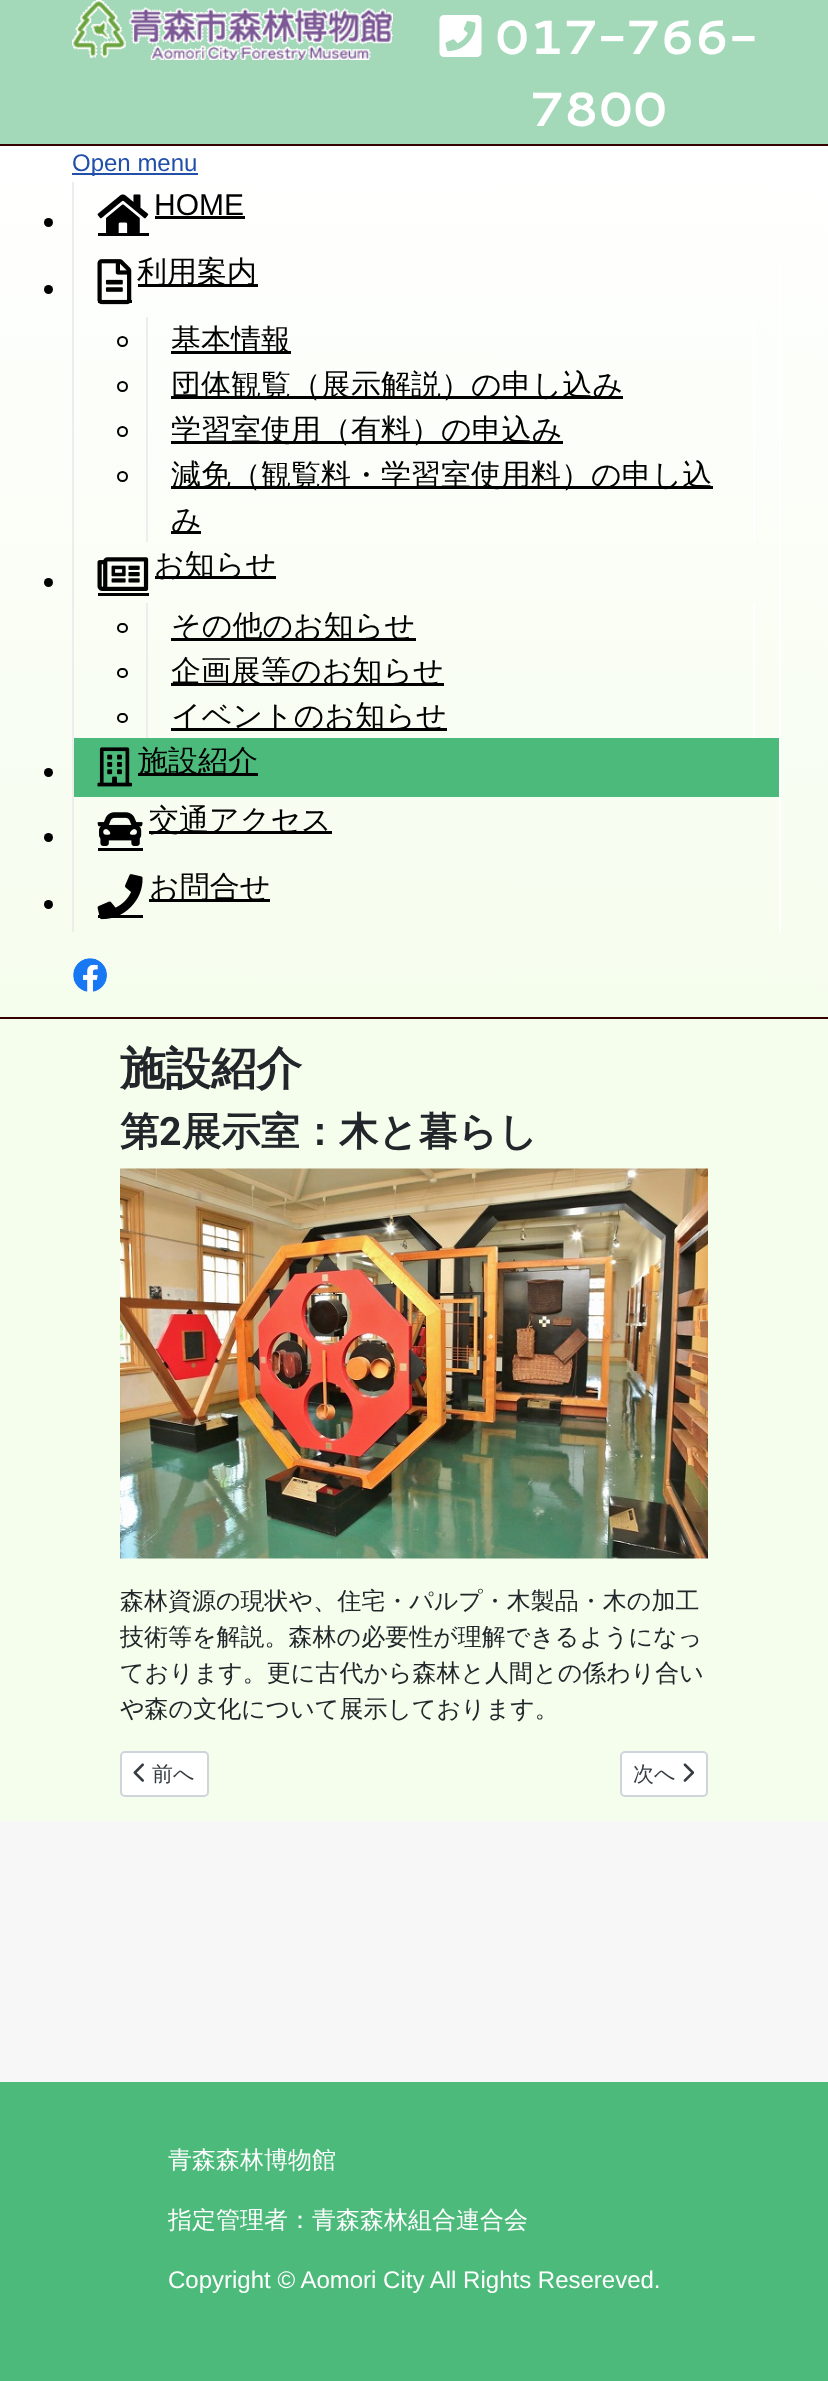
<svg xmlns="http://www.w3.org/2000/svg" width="828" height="2381">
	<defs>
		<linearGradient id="g1" gradientUnits="userSpaceOnUse" x1="414" y1="145" x2="414" y2="1017"><stop offset="0" stop-color="#FFFFFF" /><stop offset="1" stop-color="#F5FDED" /></linearGradient>
	</defs>
	<rect width="100%" height="100%" fill="#F8F7F7" />
	<rect x="0" y="0" width="828" height="144" fill="#A3D8B8" />
	<image x="72" y="0" width="321" height="60" href="assets/img1.png" />
	<image x="439" y="15" width="43" height="42" href="assets/img2.png" />
	<g font-family="Cantarell" font-size="48" font-weight="700" fill="#FFFFFF">
		<text x="495" y="54">017-766-</text>
		<text x="530" y="126">7800</text>
	</g>
	<rect x="0" y="146" width="828" height="871" fill="url(#g1)" />
	<rect x="0" y="144" width="828" height="2" fill="#340000" />
	<rect x="0" y="1017" width="828" height="2" fill="#340000" />
	<rect x="72" y="173" width="126" height="2" fill="#224FAA" />
	<text x="72" y="171" font-family="Liberation Sans" font-size="24" fill="#224FAA">Open menu</text>
	<rect x="72" y="182" width="2" height="750" fill="#EEEDED" />
	<rect x="98" y="233" width="51" height="3" fill="#000000" />
	<image x="97" y="194" width="52" height="39" href="assets/img3.png" />
	<text x="154" y="215" font-family="Liberation Sans" font-size="30" fill="#000000">HOME</text>
	<rect x="155" y="216" width="90" height="3" fill="#000000" />
	<circle cx="48.5" cy="222.5" r="4.5" fill="#000000" />
	<rect x="779" y="266" width="2" height="666" fill="#FFFFFF" />
	<rect x="98" y="300" width="34" height="3" fill="#000000" />
	<image x="97" y="259" width="35" height="46" href="assets/img4.png" />
	<rect x="138" y="284" width="120" height="3" fill="#000000" />
	<text x="137" y="282" font-family="WenQuanYi Zen Hei" font-size="30" font-weight="500" fill="#000000">利用案内</text>
	<circle cx="48.5" cy="289.5" r="4.5" fill="#000000" />
	<rect x="753" y="317" width="2" height="225" fill="#FFFFFF" />
	<rect x="146" y="317" width="2" height="225" fill="#EEEDED" />
	<circle cx="122.5" cy="341.5" r="4.5" fill="none" stroke="#000000" stroke-width="2" />
	<rect x="171" y="351" width="120" height="3" fill="#000000" />
	<text x="171" y="350" font-family="WenQuanYi Zen Hei" font-size="30" font-weight="500" fill="#000000">基本情報</text>
	<circle cx="122.5" cy="386.5" r="4.5" fill="none" stroke="#000000" stroke-width="2" />
	<rect x="171" y="396" width="452" height="3" fill="#000000" />
	<text x="171" y="395" font-family="WenQuanYi Zen Hei" font-size="30" font-weight="500" fill="#000000">団体観覧（展示解説）の申し込み</text>
	<circle cx="122.5" cy="431.5" r="4.5" fill="none" stroke="#000000" stroke-width="2" />
	<rect x="171" y="441" width="392" height="3" fill="#000000" />
	<text x="171" y="440" font-family="WenQuanYi Zen Hei" font-size="30" font-weight="500" fill="#000000">学習室使用（有料）の申込み</text>
	<circle cx="122.5" cy="476.5" r="4.5" fill="none" stroke="#000000" stroke-width="2" />
	<rect x="171" y="486" width="542" height="3" fill="#000000" />
	<text x="171" y="485" font-family="WenQuanYi Zen Hei" font-size="30" font-weight="500" fill="#000000">減免（観覧料・学習室使用料）の申し込</text>
	<rect x="171" y="531" width="30" height="3" fill="#000000" />
	<text x="171" y="530" font-family="WenQuanYi Zen Hei" font-size="30" font-weight="500" fill="#000000">み</text>
	<rect x="98" y="593" width="51" height="3" fill="#000000" />
	<image x="97" y="557" width="52" height="34" href="assets/img5.png" />
	<rect x="155" y="576" width="121" height="3" fill="#000000" />
	<text x="154" y="575" font-family="WenQuanYi Zen Hei" font-size="30" font-weight="500" fill="#000000">お知らせ</text>
	<circle cx="48.5" cy="582.5" r="4.5" fill="#000000" />
	<rect x="753" y="603" width="2" height="135" fill="#FFFFFF" />
	<rect x="146" y="603" width="2" height="135" fill="#EEEDED" />
	<rect x="118" y="624" width="9" height="8" rx="4" fill="none" stroke="#000000" stroke-width="2" />
	<rect x="171" y="638" width="245" height="3" fill="#000000" />
	<text x="171" y="636" font-family="WenQuanYi Zen Hei" font-size="30" font-weight="500" fill="#000000">その他のお知らせ</text>
	<rect x="118" y="669" width="9" height="8" rx="4" fill="none" stroke="#000000" stroke-width="2" />
	<rect x="171" y="683" width="273" height="3" fill="#000000" />
	<text x="171" y="681" font-family="WenQuanYi Zen Hei" font-size="30" font-weight="500" fill="#000000">企画展等のお知らせ</text>
	<rect x="118" y="714" width="9" height="8" rx="4" fill="none" stroke="#000000" stroke-width="2" />
	<rect x="171" y="728" width="276" height="3" fill="#000000" />
	<text x="171" y="726" font-family="WenQuanYi Zen Hei" font-size="30" font-weight="500" fill="#000000">イベントのお知らせ</text>
	<rect x="74" y="738" width="705" height="59" fill="#4CBA7A" />
	<circle cx="48.5" cy="772.5" r="4.5" fill="#000000" />
	<rect x="131" y="783" width="1" height="3" fill="#000000" />
	<image x="97" y="747" width="35" height="40" href="assets/img6.png" />
	<rect x="138" y="773" width="120" height="3" fill="#000000" />
	<text x="138" y="771" font-family="WenQuanYi Zen Hei" font-size="30" font-weight="500" fill="#000000">施設紹介</text>
	<rect x="98" y="848" width="45" height="3" fill="#000000" />
	<image x="97" y="812" width="46" height="34" href="assets/img7.png" />
	<rect x="149" y="831" width="183" height="3" fill="#000000" />
	<text x="149" y="830" font-family="WenQuanYi Zen Hei" font-size="30" font-weight="500" fill="#000000">交通アクセス</text>
	<circle cx="48.5" cy="837.5" r="4.5" fill="#000000" />
	<rect x="98" y="915" width="45" height="3" fill="#000000" />
	<image x="97" y="874" width="46" height="46" href="assets/img8.png" />
	<rect x="149" y="899" width="121" height="3" fill="#000000" />
	<text x="149" y="897" font-family="WenQuanYi Zen Hei" font-size="30" font-weight="500" fill="#000000">お問合せ</text>
	<circle cx="48.5" cy="904.5" r="4.5" fill="#000000" />
	<image x="73" y="958" width="34" height="34" href="assets/img9.png" />
	<rect x="0" y="1019" width="828" height="802" fill="#F5FDED" />
	<text x="120" y="1084" font-family="WenQuanYi Zen Hei" font-size="45.5" font-weight="700" fill="#22262A">施設紹介</text>
	<text x="120" y="1145" font-family="WenQuanYi Zen Hei" font-size="39.25" font-weight="700" fill="#22262A">第</text>
	<text x="159" y="1145" font-family="Roboto" font-size="39.25" font-weight="700" fill="#22262A">2</text>
	<text x="182" y="1145" font-family="WenQuanYi Zen Hei" font-size="39.25" font-weight="700" fill="#22262A">展示室：木と暮らし</text>
	<image x="120" y="1168" width="588" height="391" href="assets/img10.png" />
	<g font-family="WenQuanYi Zen Hei" font-size="24" font-weight="500" fill="#22262A">
		<text x="120" y="1609">森林資源の現状や、住宅・パルプ・木製品・木の加工</text>
		<text x="120" y="1645">技術等を解説。森林の必要性が理解できるようになっ</text>
		<text x="120" y="1681">ております。更に古代から森林と人間との係わり合い</text>
		<text x="120" y="1717">や森の文化について展示しております。</text>
	</g>
	<rect x="121" y="1752" width="87" height="44" rx="4" fill="#FFFFFF" stroke="#CED4DA" stroke-width="2" />
	<image x="133" y="1763" width="11" height="19" href="assets/img11.png" />
	<text x="152" y="1781" font-family="WenQuanYi Zen Hei" font-size="21" font-weight="500" fill="#353B41">前へ</text>
	<rect x="621" y="1752" width="86" height="44" rx="4" fill="#FFFFFF" stroke="#CED4DA" stroke-width="2" />
	<text x="633" y="1781" font-family="WenQuanYi Zen Hei" font-size="21" font-weight="500" fill="#353B41">次へ</text>
	<image x="683" y="1763" width="12" height="19" href="assets/img12.png" />
	<rect x="0" y="2082" width="828" height="299" fill="#4CBA7A" />
	<g font-family="WenQuanYi Zen Hei" font-size="24" font-weight="500" fill="#FFFFFF">
		<text x="168" y="2168">青森森林博物館</text>
		<text x="168" y="2228">指定管理者：青森森林組合連合会</text>
	</g>
	<text x="168" y="2288" font-family="Liberation Sans" font-size="24" fill="#FFFFFF">Copyright © Aomori City All Rights Resereved.</text>
</svg>
